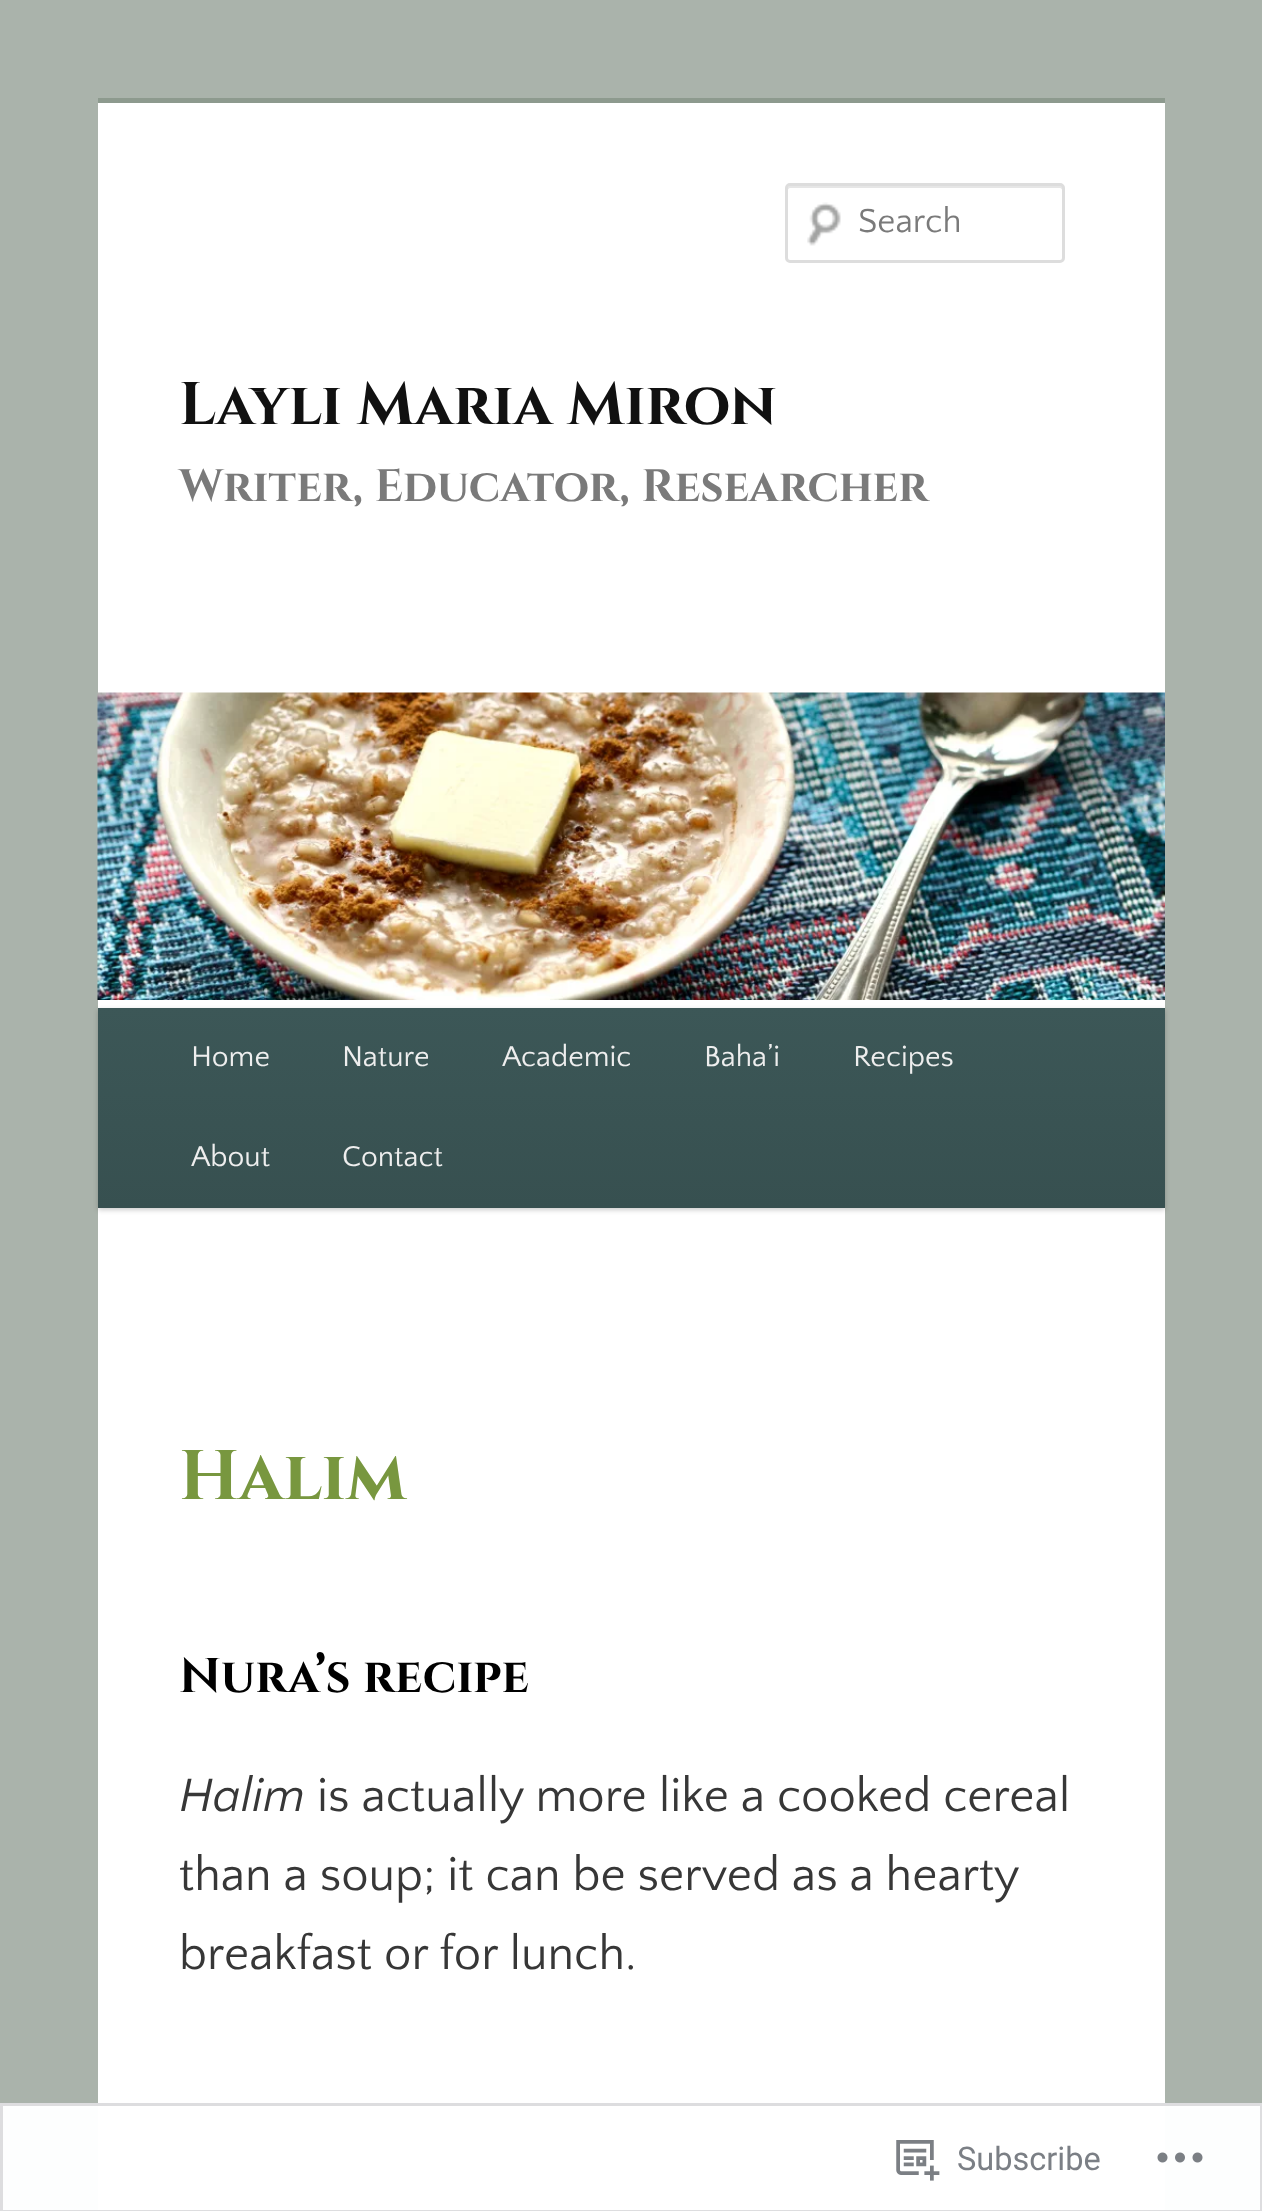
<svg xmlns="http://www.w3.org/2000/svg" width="1262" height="2211">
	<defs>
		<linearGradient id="g1" gradientUnits="userSpaceOnUse" x1="631" y1="1008" x2="631" y2="1208"><stop offset="0" stop-color="#3C5757" /><stop offset="1" stop-color="#375050" /></linearGradient>
	</defs>
	<rect width="100%" height="100%" fill="#AAB3AB" />
	<rect x="98" y="103" width="1067" height="2108" fill="#FFFFFF" />
	<rect x="98" y="98" width="1067" height="5" fill="#8D9A8E" />
	<image x="807" y="202" width="34" height="44" href="assets/img1.png" />
	<path d="M790 188H1060C1061 188 1062 189 1062 190V260C1063 259 1063 258 1063 258V188C1063 186 1062 185 1060 185H790C789 185 788 186 788 188V190C788 189 789 188 790 188Z" fill="#E6E6E6" />
	<rect x="786.5" y="184.5" width="277" height="77" rx="3.5" fill="none" stroke="#DDDDDD" stroke-width="3" />
	<text x="858" y="232" font-family="Quattrocento Sans" font-size="35" fill="#7A7A7A">Search</text>
	<text x="179" y="424" font-family="Cinzel" font-size="60" font-weight="700" fill="#111111">Layli Maria Miron</text>
	<text x="179" y="501" font-family="Cinzel" font-size="45.5" font-weight="700" fill="#7A7A7A">Writer, Educator, Researcher</text>
	<image x="97" y="692" width="1068" height="308" href="assets/img2.png" />
	<rect x="98" y="1010" width="1067" height="200" fill="#000000" fill-opacity="0.2" filter="blur(2.5px)" />
	<rect x="98" y="1008" width="1067" height="200" fill="url(#g1)" />
	<g font-family="Quattrocento Sans" font-size="30" fill="#EEEEEE">
		<text x="191" y="1066">Home</text>
		<text x="342" y="1066">Nature</text>
		<text x="502" y="1066">Academic</text>
		<text x="704" y="1066">Baha’i</text>
		<text x="853" y="1066">Recipes</text>
		<text x="191" y="1166">About</text>
		<text x="342" y="1166">Contact</text>
	</g>
	<text x="179" y="1499" font-family="Cinzel" font-size="70" font-weight="700" fill="#78973F">Halim</text>
	<text x="179" y="1692" font-family="Cinzel" font-size="48.75" font-weight="700" fill="#000000">Nura’s recipe</text>
	<text x="179" y="1811" font-family="Quattrocento Sans" font-size="48.75" font-style="italic" fill="#373737">Halim</text>
	<g font-family="Quattrocento Sans" font-size="48.75" fill="#373737">
		<text x="317" y="1811">is actually more like a cooked cereal</text>
		<text x="179" y="1890" word-spacing="-0.1">than a soup; it can be served as a hearty</text>
		<text x="179" y="1969">breakfast or for lunch.</text>
	</g>
	<rect x="0" y="2103" width="1262" height="108" fill="#FFFFFF" fill-opacity="0.98" />
	<rect x="1.5" y="2104.5" width="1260" height="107" fill="none" stroke="#DCDCDE" stroke-opacity="0.98" stroke-width="3" />
	<image x="896" y="2140" width="44" height="41" href="assets/img3.png" />
	<text x="957" y="2170" font-family="Roboto" font-size="32.5" fill="#7B7F85">Subscribe</text>
	<image x="1157" y="2152" width="46" height="11" href="assets/img4.png" />
</svg>
